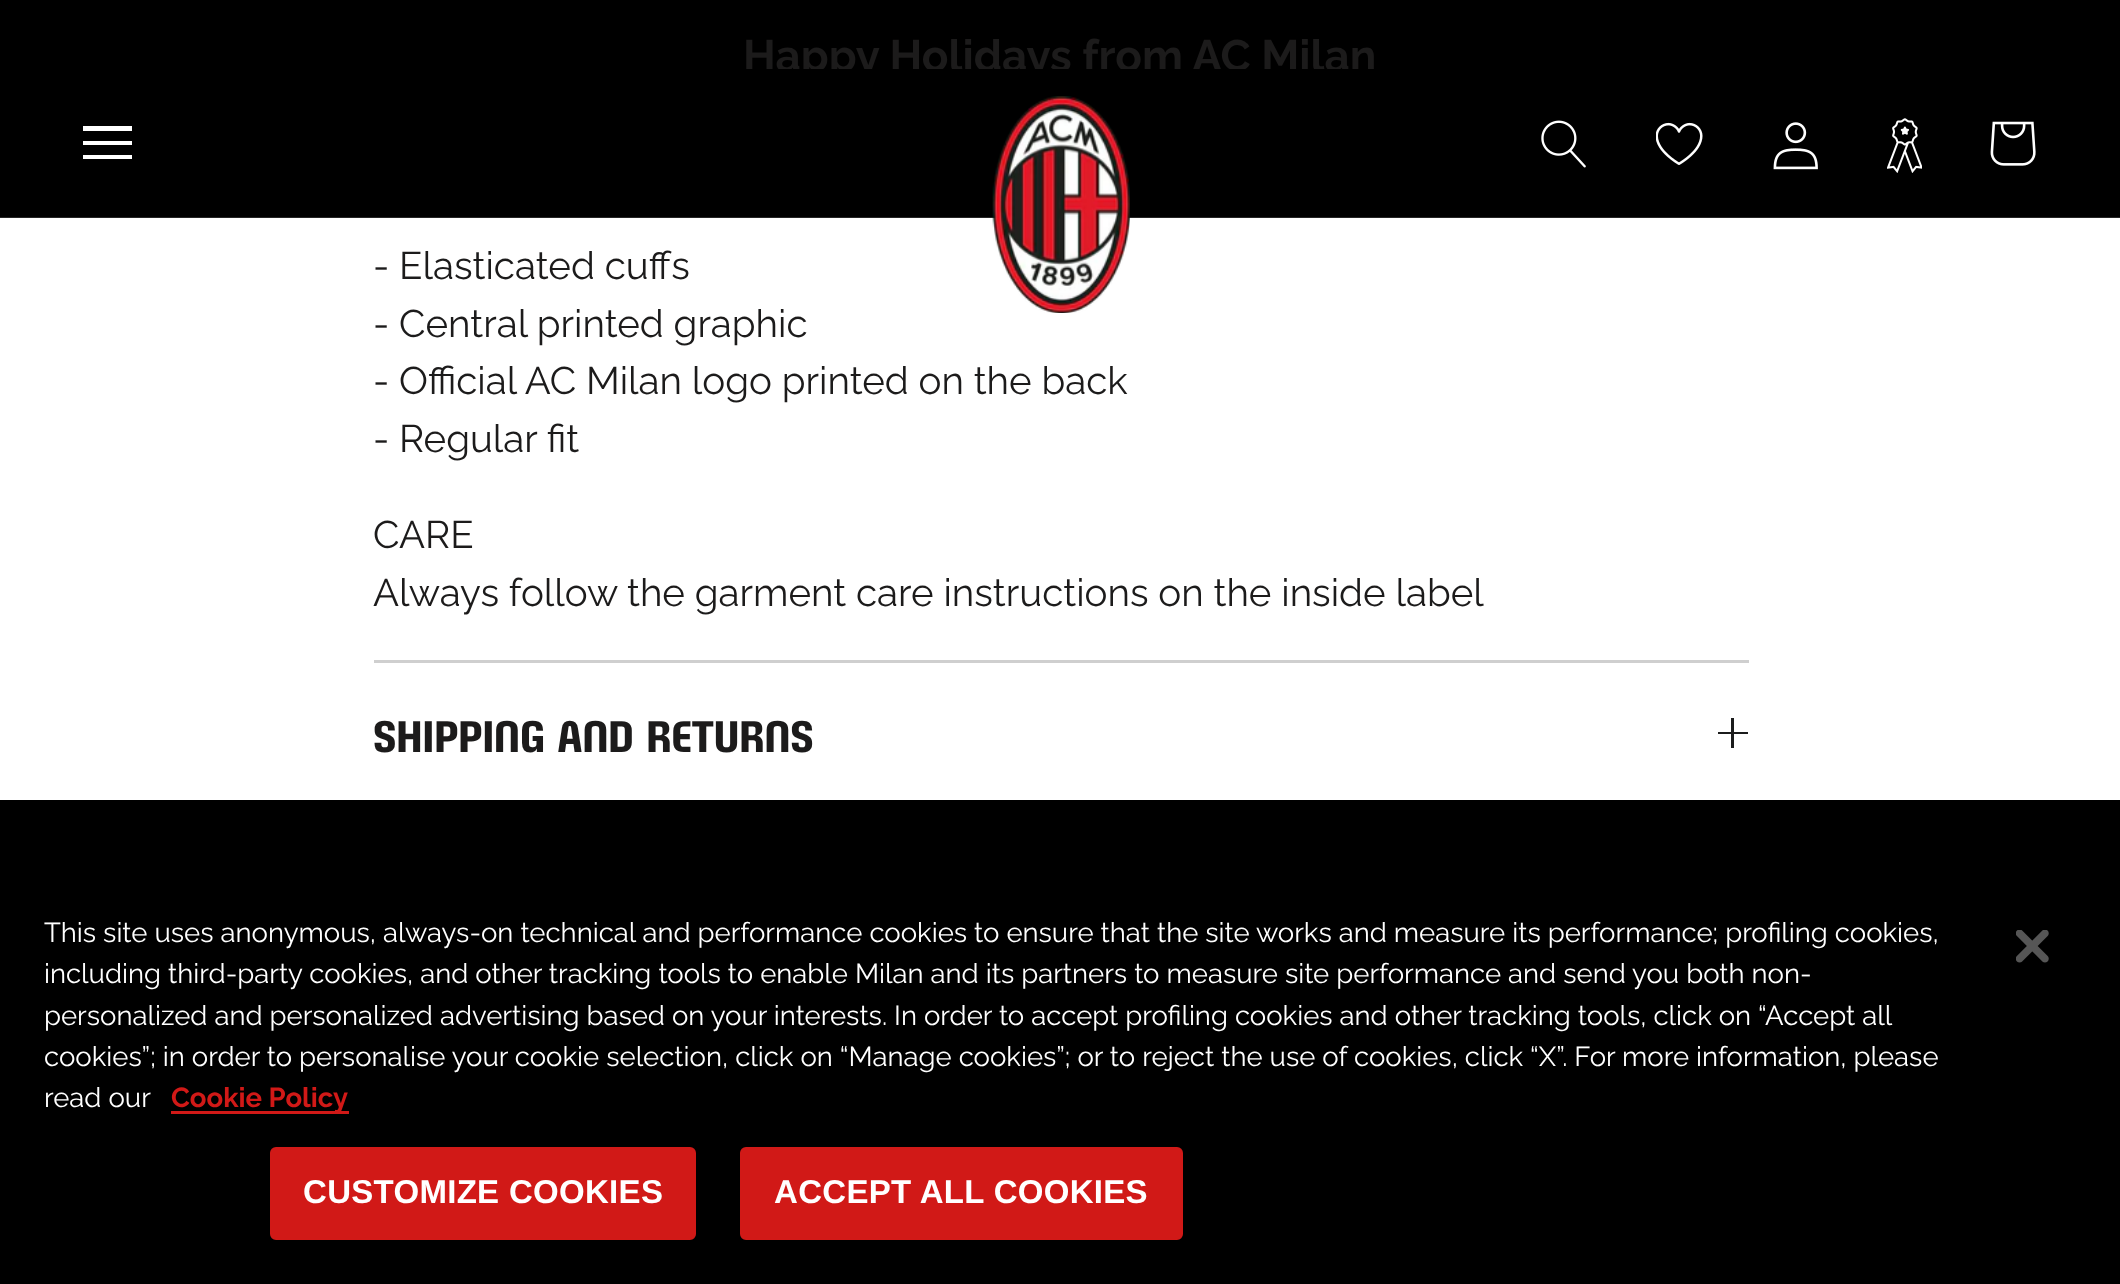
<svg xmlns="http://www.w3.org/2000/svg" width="2120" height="1284">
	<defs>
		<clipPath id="clip1"><rect x="83" y="118" width="49" height="50" /></clipPath>
	</defs>
	<rect width="100%" height="100%" fill="#FFFFFF" />
	<rect x="0" y="0" width="2120" height="69" fill="#000000" />
	<text x="743" y="71" font-family="Raleway" font-size="44" font-weight="700" fill="#1C1B1B">Happy Holidays from AC Milan</text>
	<rect x="0" y="217" width="2120" height="1" fill="#262626" />
	<rect x="0" y="69" width="2120" height="148" fill="#000000" />
	<g clip-path="url(#clip1)">
		<path d="M82 159V155H132V159ZM82 141H132V145H82ZM82 126H132V131H82Z" fill="#FFFFFF" />
	</g>
	<image x="992" y="96" width="138" height="217" href="assets/img1.png" />
	<image x="1541" y="120" width="45" height="48" href="assets/img2.png" />
	<image x="1656" y="122" width="47" height="43" href="assets/img3.png" />
	<image x="1773" y="122" width="45" height="48" href="assets/img4.png" />
	<image x="1887" y="118" width="35" height="55" href="assets/img5.png" />
	<image x="1990" y="121" width="46" height="45" href="assets/img6.png" />
	<g font-family="Raleway" font-size="38.5" fill="#1C1B1B">
		<text x="373" y="279">- Elasticated cuffs</text>
		<text x="373" y="337">- Central printed graphic</text>
		<text x="373" y="394">- Official AC Milan logo printed on the back</text>
		<text x="373" y="452">- Regular fit</text>
		<text x="373" y="548">CARE</text>
		<text x="373" y="606">Always follow the garment care instructions on the inside label</text>
	</g>
	<rect x="374" y="660" width="1375" height="3" fill="#CFCFCF" />
	<text x="373" y="752" font-family="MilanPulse" font-size="38.5" fill="#1C1B1B">SHIPPING AND RETURNS</text>
	<rect x="1731" y="718" width="3" height="30" fill="#1B1C1C" />
	<rect x="1718" y="732" width="30" height="2" fill="#1B1C1C" />
	<rect x="0" y="800" width="2120" height="484" fill="#000000" />
	<g font-family="Raleway" font-size="27.5" fill="#FFFFFF">
		<text x="44" y="942">This site uses anonymous, always-on technical and performance cookies to ensure that the site works and measure its performance; profiling cookies,</text>
		<text x="44" y="983">including third-party cookies, and other tracking tools to enable Milan and its partners to measure site performance and send you both non-</text>
		<text x="44" y="1025">personalized and personalized advertising based on your interests. In order to accept profiling cookies and other tracking tools, click on “Accept all</text>
		<text x="44" y="1066">cookies”; in order to personalise your cookie selection, click on “Manage cookies”; or to reject the use of cookies, click “X”. For more information, please</text>
		<text x="44" y="1107">read our</text>
	</g>
	<rect x="171" y="1111" width="178" height="3" fill="#D11917" />
	<text x="171" y="1107" font-family="Raleway" font-size="27.5" font-weight="700" fill="#D11917">Cookie Policy</text>
	<rect x="273" y="1150" width="420" height="87" rx="3" fill="#D11917" stroke="#D11917" stroke-width="6" />
	<text x="303" y="1203" font-family="Liberation Sans" font-size="33" font-weight="700" letter-spacing="0.3" fill="#FFFFFF">CUSTOMIZE COOKIES</text>
	<rect x="743" y="1150" width="437" height="87" rx="3" fill="#D11917" stroke="#D11917" stroke-width="6" />
	<text x="774" y="1203" font-family="Liberation Sans" font-size="33" font-weight="700" letter-spacing="0.3" fill="#FFFFFF">ACCEPT ALL COOKIES</text>
	<image x="2016" y="930" width="33" height="33" href="assets/img7.png" />
</svg>
